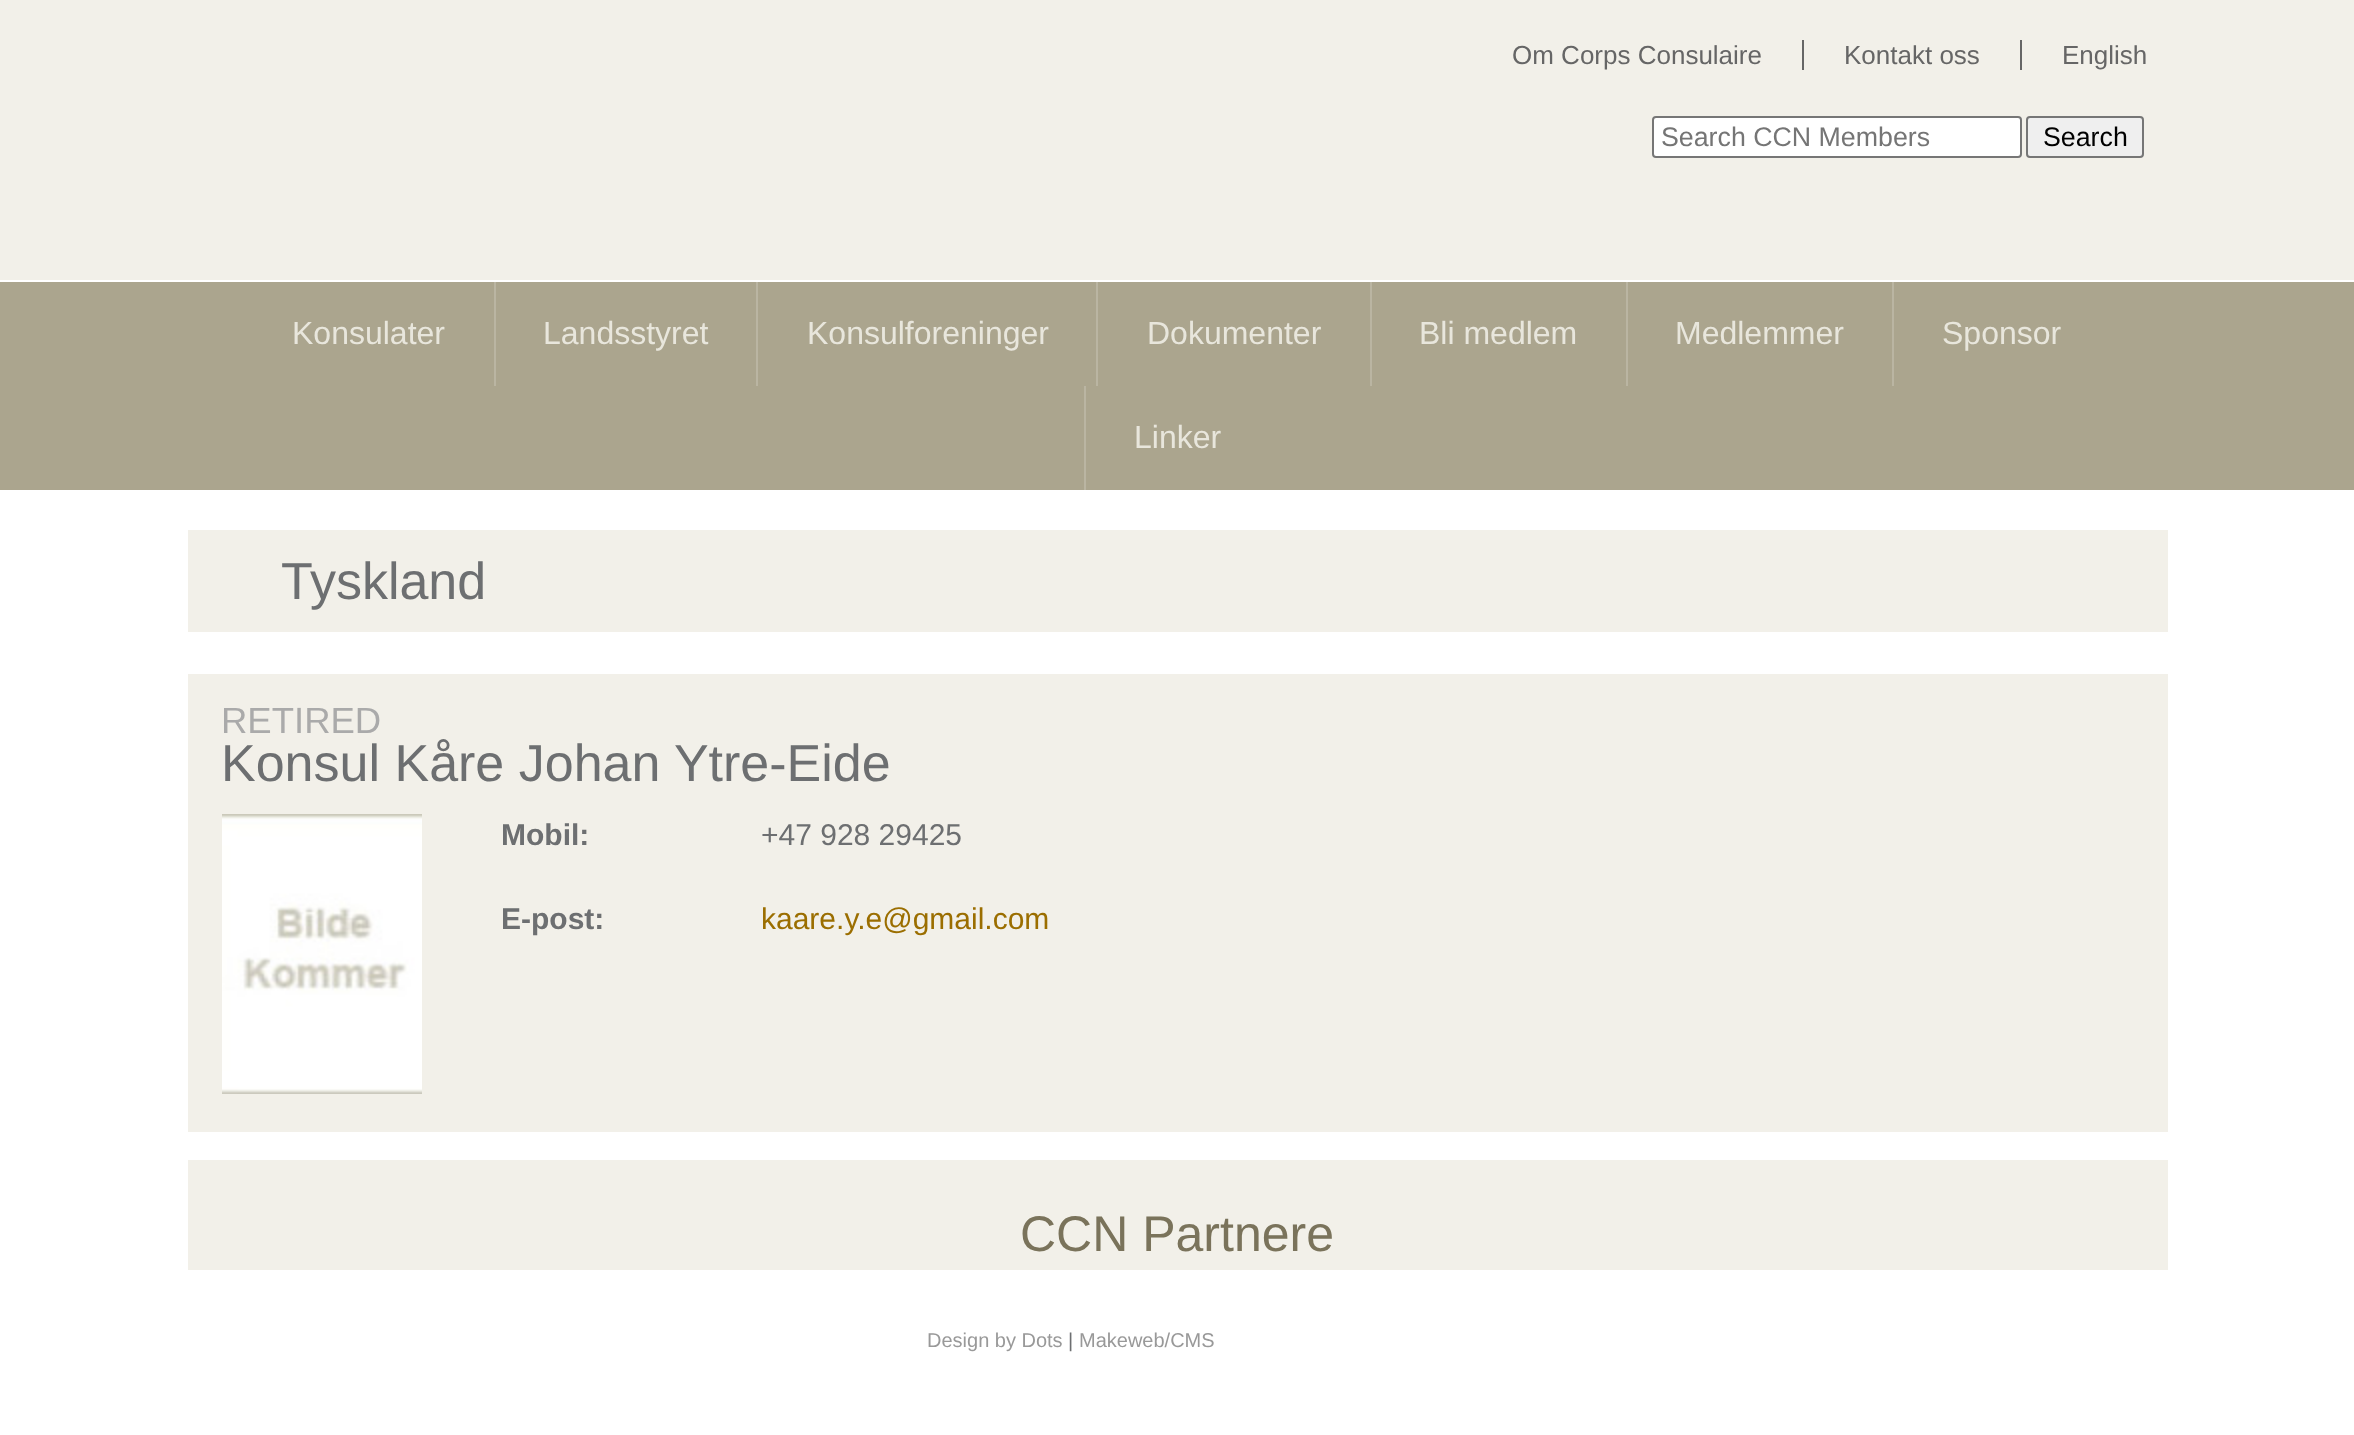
<svg xmlns="http://www.w3.org/2000/svg" width="2354" height="1435">
	<rect width="100%" height="100%" fill="#FFFFFF" />
	<rect x="0" y="0" width="2354" height="280" fill="#F2F0E9" />
	<rect x="0" y="282" width="2354" height="208" fill="#ABA58E" />
	<text x="1512" y="64" font-family="Liberation Sans" font-size="26" fill="#666666">Om Corps Consulaire</text>
	<rect x="1802" y="40" width="2" height="30" fill="#666666" />
	<text x="1844" y="64" font-family="Liberation Sans" font-size="26" fill="#666666">Kontakt oss</text>
	<rect x="2020" y="40" width="2" height="30" fill="#666666" />
	<text x="2062" y="64" font-family="Liberation Sans" font-size="26" fill="#666666">English</text>
	<rect x="1653" y="117" width="368" height="40" rx="3" fill="#FFFFFF" stroke="#767676" stroke-width="2" />
	<text x="1661" y="146" font-family="Liberation Sans" font-size="26.75" fill="#757575">Search CCN Members</text>
	<rect x="2027" y="117" width="116" height="40" rx="3" fill="#EFEFEF" stroke="#767676" stroke-width="2" />
	<text x="2043" y="146" font-family="Liberation Sans" font-size="26.75" fill="#000000">Search</text>
	<text x="292" y="344" font-family="Liberation Sans" font-size="32" fill="#E8E6DC">Konsulater</text>
	<rect x="494" y="282" width="2" height="104" fill="#BAB5A2" />
	<text x="543" y="344" font-family="Liberation Sans" font-size="32" fill="#E8E6DC">Landsstyret</text>
	<rect x="756" y="282" width="2" height="104" fill="#BAB5A2" />
	<text x="807" y="344" font-family="Liberation Sans" font-size="32" fill="#E8E6DC">Konsulforeninger</text>
	<rect x="1096" y="282" width="2" height="104" fill="#BAB5A2" />
	<text x="1147" y="344" font-family="Liberation Sans" font-size="32" fill="#E8E6DC">Dokumenter</text>
	<rect x="1370" y="282" width="2" height="104" fill="#BAB5A2" />
	<text x="1419" y="344" font-family="Liberation Sans" font-size="32" fill="#E8E6DC">Bli medlem</text>
	<rect x="1626" y="282" width="2" height="104" fill="#BAB5A2" />
	<text x="1675" y="344" font-family="Liberation Sans" font-size="32" fill="#E8E6DC">Medlemmer</text>
	<rect x="1892" y="282" width="2" height="104" fill="#BAB5A2" />
	<text x="1942" y="344" font-family="Liberation Sans" font-size="32" fill="#E8E6DC">Sponsor</text>
	<rect x="1084" y="386" width="2" height="104" fill="#BAB5A2" />
	<text x="1134" y="448" font-family="Liberation Sans" font-size="32" fill="#E8E6DC">Linker</text>
	<rect x="188" y="530" width="1980" height="102" fill="#F2F0E9" />
	<text x="281" y="599" font-family="Liberation Sans" font-size="52" fill="#6D6F71">Tyskland</text>
	<rect x="188" y="674" width="1980" height="458" fill="#F2F0E9" />
	<text x="221" y="733" font-family="Liberation Sans" font-size="36.5" fill="#AAAAAA">RETIRED</text>
	<text x="221" y="781" font-family="Liberation Sans" font-size="52" fill="#6D6F71">Konsul Kåre Johan Ytre-Eide</text>
	<image x="222" y="814" width="200" height="280" href="assets/img1.png" />
	<text x="501" y="845" font-family="Liberation Sans" font-size="30" font-weight="700" fill="#6D6F71">Mobil:</text>
	<text x="761" y="845" font-family="Liberation Sans" font-size="30" fill="#6D6F71">+47 928 29425</text>
	<text x="501" y="929" font-family="Liberation Sans" font-size="30" font-weight="700" fill="#6D6F71">E-post:</text>
	<text x="761" y="929" font-family="Liberation Sans" font-size="30" fill="#9B6E00">kaare.y.e@gmail.com</text>
	<rect x="188" y="1160" width="1980" height="110" fill="#F2F0E9" />
	<text x="1020" y="1251" font-family="Liberation Sans" font-size="50" fill="#7A735B">CCN Partnere</text>
	<text x="927" y="1347" font-family="Liberation Sans" font-size="20" fill="#999999">Design by Dots</text>
	<text x="1068" y="1347" font-family="Liberation Sans" font-size="20" fill="#6D6F71">|</text>
	<text x="1079" y="1347" font-family="Liberation Sans" font-size="20" fill="#999999">Makeweb/CMS</text>
</svg>
